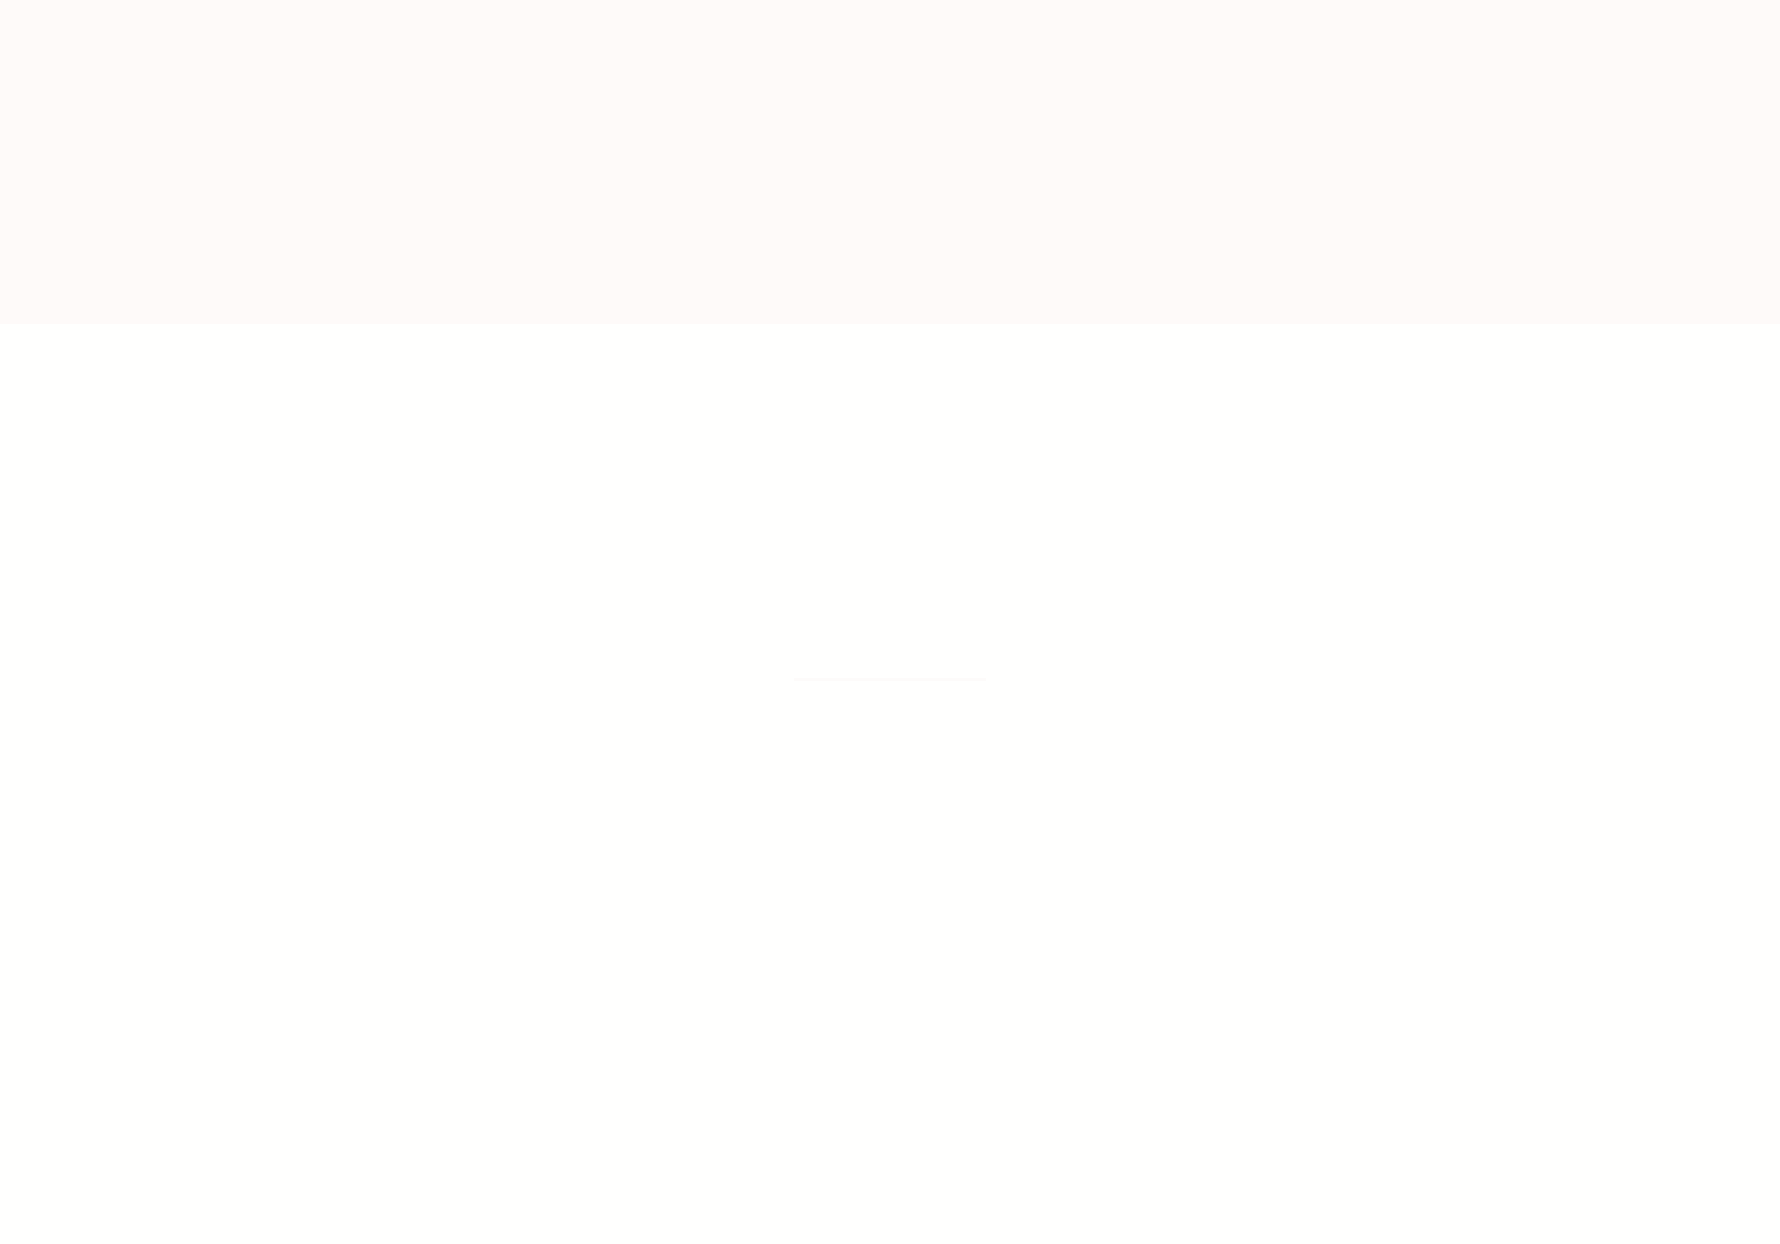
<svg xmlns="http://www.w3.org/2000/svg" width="1780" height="1244">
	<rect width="100%" height="100%" fill="#FFFFFE" />
	<rect x="0" y="0" width="1780" height="324" fill="#FEFAF9" />
	<rect x="794" y="678" width="192" height="3" fill="#FDFBFA" />
</svg>
